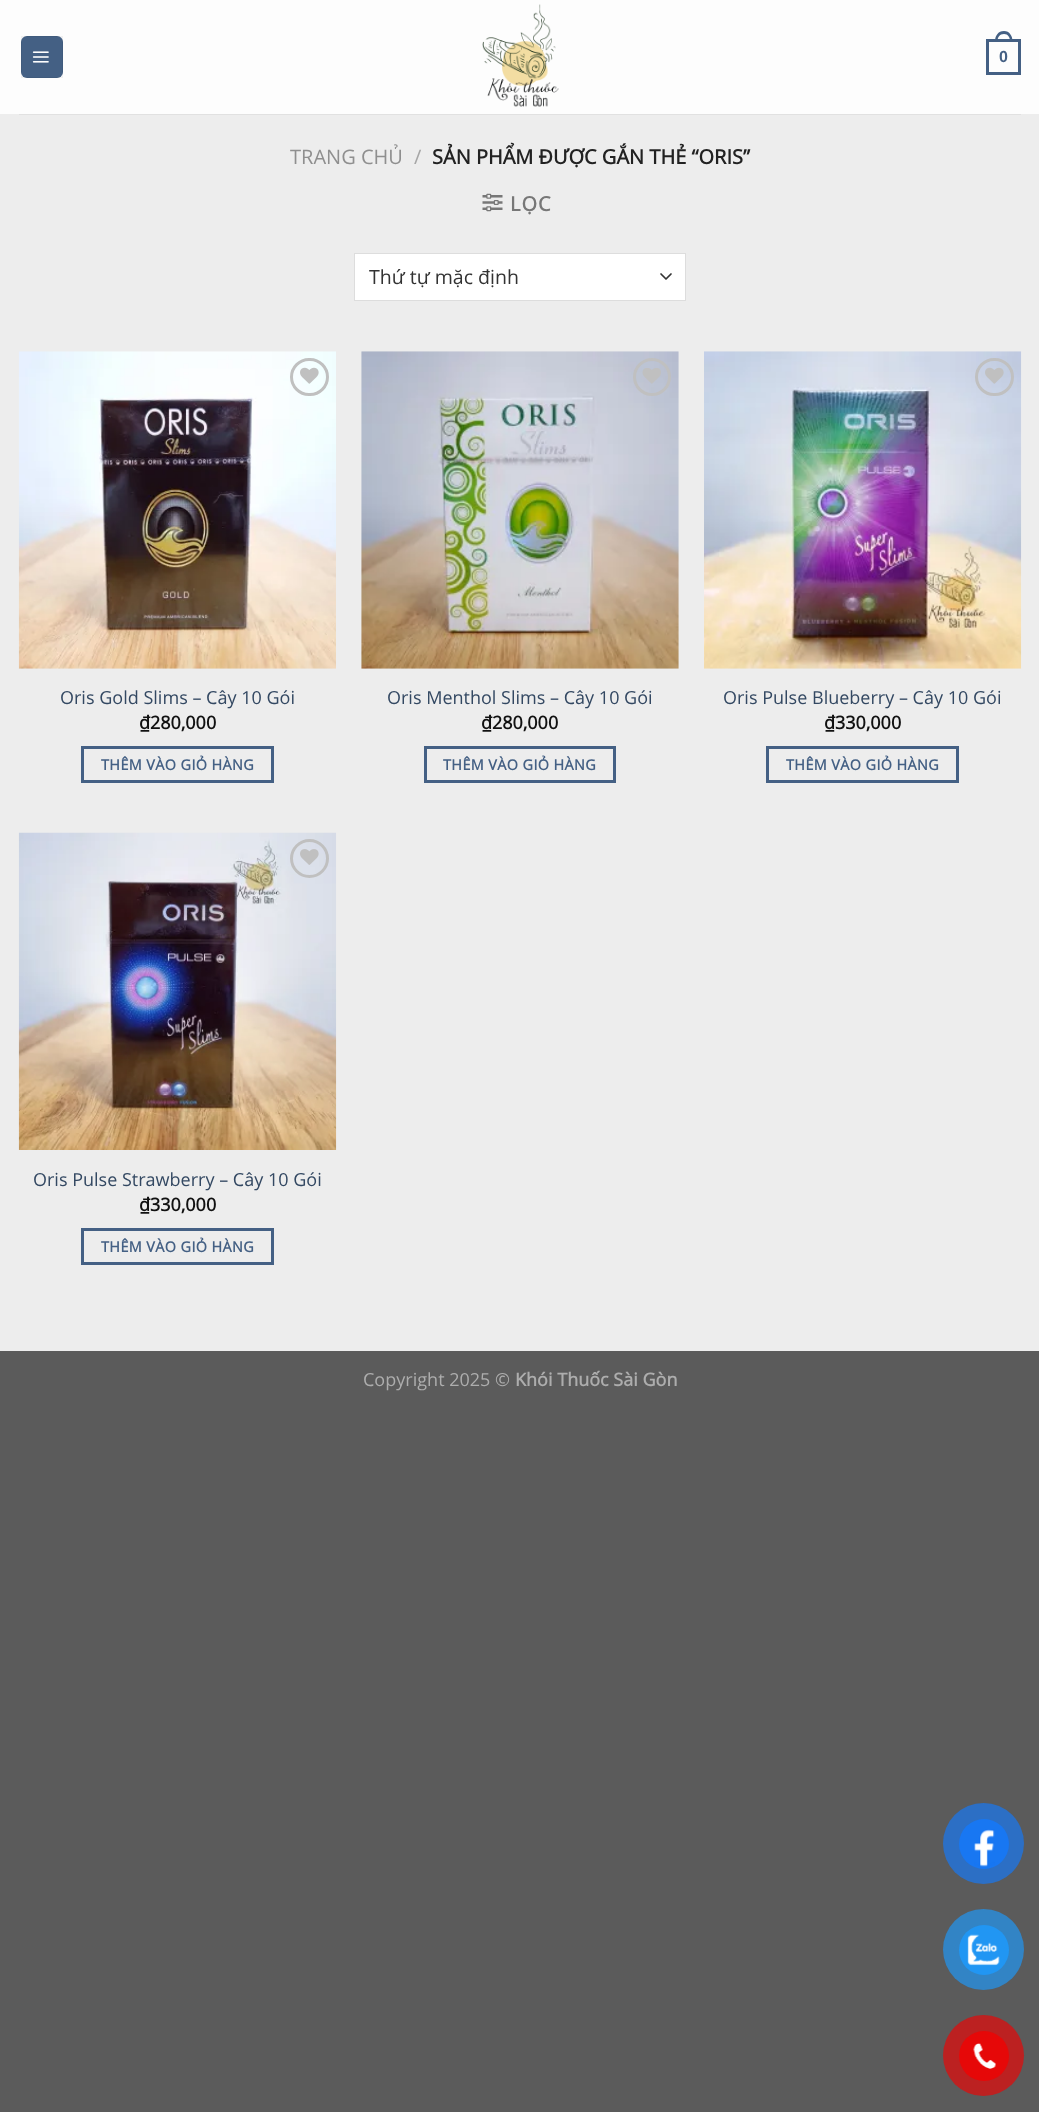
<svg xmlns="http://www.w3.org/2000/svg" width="1039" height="2112">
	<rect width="100%" height="100%" fill="#5B5B5B" />
	<rect x="0" y="114" width="1039" height="1237" fill="#EDEDED" />
	<rect x="0" y="0" width="1039" height="114" fill="#FDFDFD" />
	<rect x="21" y="36" width="42" height="42" rx="6" fill="#446084" />
	<rect x="21.5" y="36.5" width="41" height="41" fill="none" stroke="#000000" stroke-opacity="0.05" />
	<image x="32" y="51" width="17" height="12" href="assets/img1.png" />
	<image x="482" y="4" width="77" height="103" href="assets/img2.png" />
	<rect x="987.5" y="40.5" width="32" height="33" fill="none" stroke="#446084" stroke-width="3" />
	<path d="M1004 31C1009.5 31 1012.5 36 1012.5 41H995C995 36 998 31 1004 31ZM1004 34C1008 34 1010 37.5 1010 41H997.5C997.5 37.5 999.5 34 1004 34Z" fill="#446084" fill-rule="evenodd" />
	<text x="999" y="62" font-family="Liberation Sans" font-size="16" font-weight="700" fill="#446084">0</text>
	<rect x="19" y="114" width="1002" height="1" fill="#E1E1E1" />
	<text x="290" y="164" font-family="Open Sans" font-size="20" fill="#8F8F8F">TRANG CHỦ</text>
	<text x="414" y="164" font-family="Open Sans" font-size="20" fill="#A6A6A6">/</text>
	<text x="432" y="164" font-family="Open Sans" font-size="20" font-weight="700" fill="#222222">SẢN PHẨM ĐƯỢC GẮN THẺ “ORIS”</text>
	<image x="482" y="193" width="21" height="19" href="assets/img3.png" />
	<text x="510" y="211" font-family="Open Sans" font-size="20" font-weight="700" letter-spacing="1" fill="#777777">LỌC</text>
	<rect x="355" y="254" width="330" height="46" fill="#FFFFFF" />
	<path d="M661 274L666 279L671 274" fill="none" stroke="#333333" stroke-width="1.7" stroke-linecap="round" stroke-linejoin="round" />
	<rect x="354.5" y="253.5" width="331" height="47" fill="none" stroke="#DDDDDD" />
	<text x="369" y="284" font-family="Open Sans" font-size="19.5" fill="#333333">Thứ tự mặc định</text>
	<image x="18" y="351" width="318" height="318" href="assets/img4.png" />
	<rect x="291.5" y="359.5" width="36" height="35" rx="17.5" fill="none" stroke="#C0C0C0" stroke-width="3" />
	<image x="300" y="367" width="19" height="17" href="assets/img5.png" />
	<text x="60" y="704" font-family="Open Sans" font-size="18" fill="#334862">Oris Gold Slims – Cây 10 Gói</text>
	<text x="139" y="729" font-family="Open Sans" font-size="18" font-weight="700" fill="#111111">₫280,000</text>
	<rect x="82.5" y="747.5" width="190" height="34" fill="none" stroke="#446084" stroke-width="3" />
	<text x="101" y="770" font-family="Open Sans" font-size="14.4" font-weight="700" letter-spacing="0.4" fill="#446084">THÊM VÀO GIỎ HÀNG</text>
	<image x="361" y="351" width="318" height="318" href="assets/img6.png" />
	<circle cx="652" cy="377" r="17.5" fill="none" stroke="#C0C0C0" stroke-width="3" />
	<image x="642" y="368" width="19" height="16" href="assets/img7.png" />
	<text x="387" y="704" font-family="Open Sans" font-size="18" fill="#334862">Oris Menthol Slims – Cây 10 Gói</text>
	<text x="481" y="729" font-family="Open Sans" font-size="18" font-weight="700" fill="#111111">₫280,000</text>
	<rect x="425.5" y="747.5" width="189" height="34" fill="none" stroke="#446084" stroke-width="3" />
	<text x="443" y="770" font-family="Open Sans" font-size="14.4" font-weight="700" letter-spacing="0.4" fill="#446084">THÊM VÀO GIỎ HÀNG</text>
	<image x="704" y="351" width="318" height="318" href="assets/img8.png" />
	<rect x="976.5" y="359.5" width="36" height="35" rx="17.5" fill="none" stroke="#C0C0C0" stroke-width="3" />
	<image x="985" y="367" width="19" height="17" href="assets/img9.png" />
	<text x="723" y="704" font-family="Open Sans" font-size="18" fill="#334862">Oris Pulse Blueberry – Cây 10 Gói</text>
	<text x="824" y="729" font-family="Open Sans" font-size="18" font-weight="700" fill="#111111">₫330,000</text>
	<rect x="767.5" y="747.5" width="190" height="34" fill="none" stroke="#446084" stroke-width="3" />
	<text x="786" y="770" font-family="Open Sans" font-size="14.4" font-weight="700" letter-spacing="0.4" fill="#446084">THÊM VÀO GIỎ HÀNG</text>
	<image x="18" y="832" width="319" height="318" href="assets/img10.png" />
	<circle cx="309.5" cy="858.5" r="18" fill="none" stroke="#C0C0C0" stroke-width="3" />
	<image x="300" y="849" width="19" height="16" href="assets/img11.png" />
	<text x="33" y="1186" font-family="Open Sans" font-size="18" fill="#334862">Oris Pulse Strawberry – Cây 10 Gói</text>
	<text x="139" y="1211" font-family="Open Sans" font-size="18" font-weight="700" fill="#111111">₫330,000</text>
	<rect x="82.5" y="1229.5" width="190" height="34" fill="none" stroke="#446084" stroke-width="3" />
	<text x="101" y="1252" font-family="Open Sans" font-size="14.4" font-weight="700" letter-spacing="0.4" fill="#446084">THÊM VÀO GIỎ HÀNG</text>
	<text x="363" y="1386" font-family="Open Sans" font-size="18" fill="#ADADAD">Copyright 2025 ©</text>
	<text x="515" y="1386" font-family="Open Sans" font-size="18" font-weight="700" fill="#ADADAD">Khói Thuốc Sài Gòn</text>
	<circle cx="983.5" cy="1843.5" r="40.5" fill="#2C6FC5" />
	<circle cx="984" cy="1844" r="25" fill="#1877F2" />
	<image x="974" y="1829" width="21" height="38" href="assets/img12.png" />
	<circle cx="983.5" cy="1949.5" r="40.5" fill="#3284C5" />
	<circle cx="984" cy="1950" r="25" fill="#2196F3" />
	<image x="967" y="1934" width="33" height="32" href="assets/img13.png" />
	<circle cx="983.5" cy="2055.5" r="40.5" fill="#BC2121" />
	<circle cx="984" cy="2056" r="25" fill="#E60808" />
	<image x="973" y="2043" width="23" height="26" href="assets/img14.png" />
</svg>
